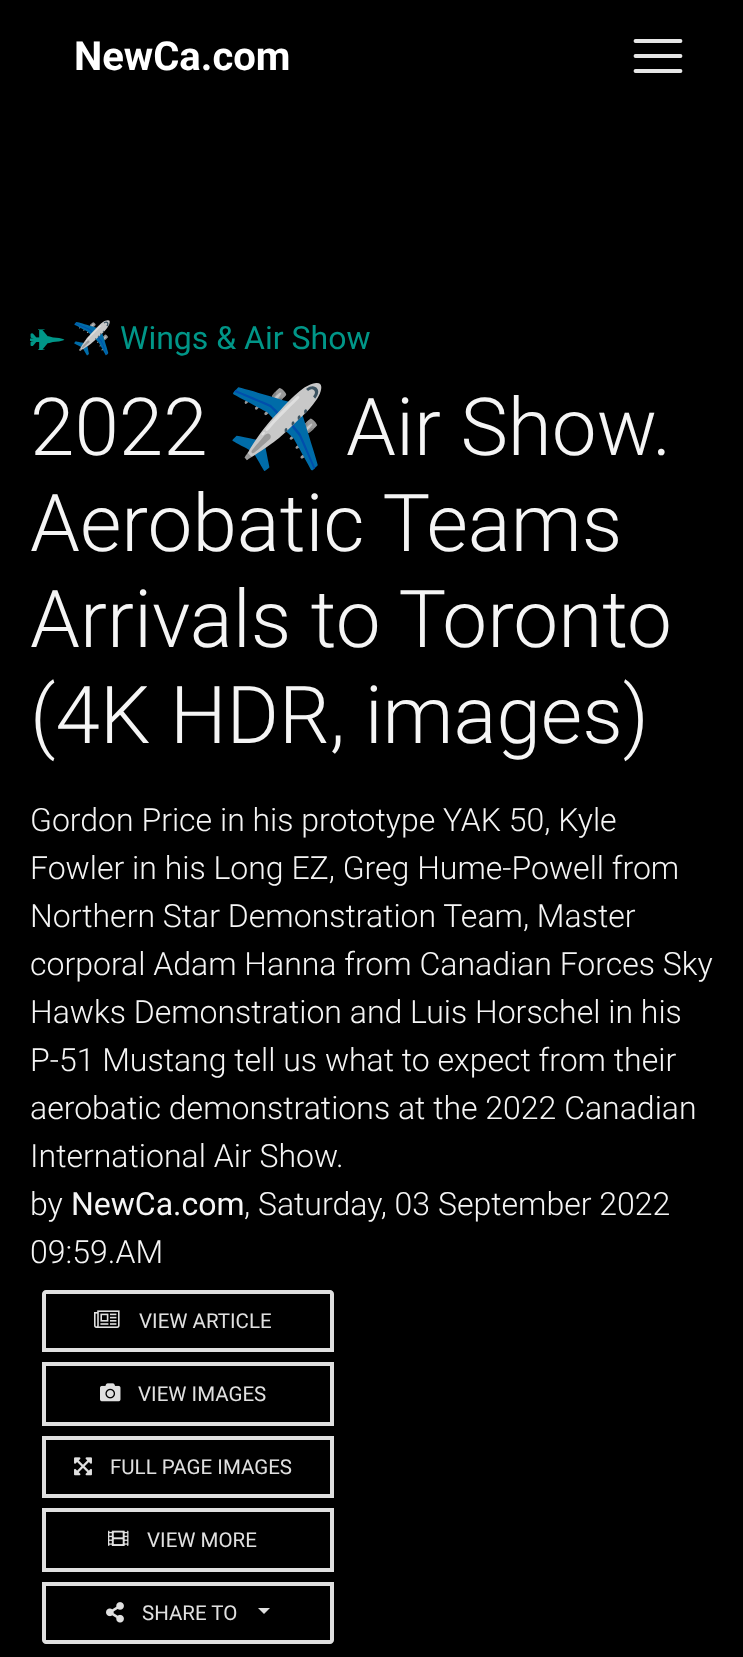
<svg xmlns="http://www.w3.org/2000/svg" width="743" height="1657">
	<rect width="100%" height="100%" fill="#000000" />
	<text x="74" y="70" font-family="Roboto" font-size="40" font-weight="700" fill="#FFFFFF">NewCa.com</text>
	<path d="M635.5 41H680.5M635.5 56H680.5M635.5 71H680.5" fill="none" stroke="#E6E6E6" stroke-width="3.8" stroke-linecap="round" />
	<image x="30" y="329" width="35" height="21" href="assets/img1.png" />
	<text x="72" y="349" font-family="Noto Color Emoji" font-size="32" fill="#009688">✈️</text>
	<text x="120" y="349" font-family="Roboto" font-size="32" fill="#009688">Wings &amp; Air Show</text>
	<text x="30" y="455" font-family="Roboto" font-size="80" font-weight="300" fill="#F5F5F5">2022</text>
	<text x="227" y="455" font-family="Noto Color Emoji" font-size="80" fill="#F5F5F5">✈️</text>
	<g font-family="Roboto" font-size="80" font-weight="300" fill="#F5F5F5">
		<text x="346" y="455">Air Show.</text>
		<text x="30" y="551">Aerobatic Teams</text>
		<text x="30" y="647">Arrivals to Toronto</text>
		<text x="30" y="743">(4K HDR, images)</text>
	</g>
	<g font-family="Roboto" font-size="32" font-weight="300" fill="#F5F5F5">
		<text x="30" y="831">Gordon Price in his prototype YAK 50, Kyle</text>
		<text x="30" y="879">Fowler in his Long EZ, Greg Hume-Powell from</text>
		<text x="30" y="927">Northern Star Demonstration Team, Master</text>
		<text x="30" y="975">corporal Adam Hanna from Canadian Forces Sky</text>
		<text x="30" y="1023">Hawks Demonstration and Luis Horschel in his</text>
		<text x="30" y="1071">P-51 Mustang tell us what to expect from their</text>
		<text x="30" y="1119">aerobatic demonstrations at the 2022 Canadian</text>
		<text x="30" y="1167">International Air Show.</text>
		<text x="30" y="1215">by</text>
	</g>
	<text x="71" y="1215" font-family="Roboto" font-size="32" fill="#F5F5F5">NewCa.com</text>
	<g font-family="Roboto" font-size="32" font-weight="300" fill="#F5F5F5">
		<text x="244" y="1215">, Saturday, 03 September 2022</text>
		<text x="30" y="1263">09:59.AM</text>
	</g>
	<path d="M46 1292H330C331 1292 332 1293 332 1294V1350H44V1294C44 1293 45 1292 46 1292Z" fill="none" stroke="#E0E0E0" stroke-width="4" />
	<image x="94" y="1310" width="26" height="18" href="assets/img2.png" />
	<text x="139" y="1328" font-family="Roboto" font-size="20.5" fill="#E0E0E0">VIEW ARTICLE</text>
	<rect x="44" y="1364" width="288" height="60" fill="none" stroke="#E0E0E0" stroke-width="4" />
	<image x="100" y="1383" width="21" height="19" href="assets/img3.png" />
	<text x="138" y="1401" font-family="Roboto" font-size="20.5" fill="#E0E0E0">VIEW IMAGES</text>
	<rect x="44" y="1438" width="288" height="58" fill="none" stroke="#E0E0E0" stroke-width="4" />
	<image x="74" y="1457" width="18" height="19" href="assets/img4.png" />
	<text x="110" y="1474" font-family="Roboto" font-size="20.5" fill="#E0E0E0">FULL PAGE IMAGES</text>
	<rect x="44" y="1510" width="288" height="60" fill="none" stroke="#E0E0E0" stroke-width="4" />
	<image x="108" y="1530" width="21" height="16" href="assets/img5.png" />
	<text x="147" y="1547" font-family="Roboto" font-size="20.5" fill="#E0E0E0">VIEW MORE</text>
	<path d="M44 1584H332V1640C332 1641 331 1642 330 1642H46C45 1642 44 1641 44 1640Z" fill="none" stroke="#E0E0E0" stroke-width="4" />
	<image x="106" y="1602" width="18" height="21" href="assets/img6.png" />
	<text x="142" y="1620" font-family="Roboto" font-size="20.5" fill="#E0E0E0">SHARE TO</text>
	<path d="M258 1608H270L264 1614Z" fill="#E0E0E0" />
</svg>
